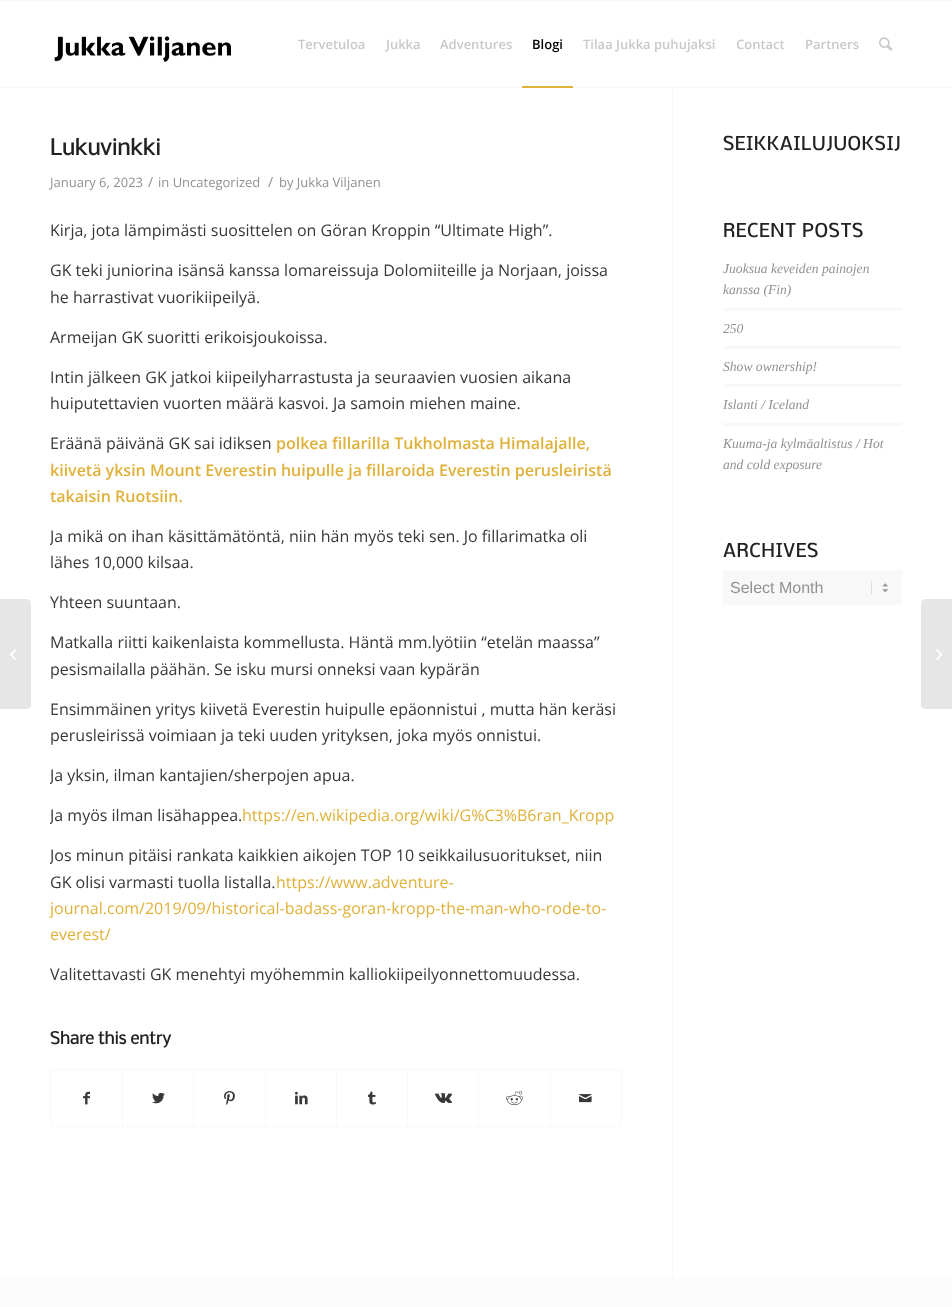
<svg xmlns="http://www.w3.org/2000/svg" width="952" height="1307">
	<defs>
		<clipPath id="clip1"><rect x="50" y="136" width="622" height="1091" /></clipPath>
	</defs>
	<rect width="100%" height="100%" fill="#FFFFFF" />
	<rect x="0" y="0" width="952" height="1" fill="#F8F8F8" />
	<rect x="672" y="86" width="1" height="1191" fill="#F8F8F8" />
	<rect x="0" y="87" width="952" height="1" fill="#F8F8F8" />
	<image x="54" y="36" width="177" height="27" href="assets/img1.png" />
	<g font-family="Open Sans" font-size="13" font-weight="600" fill="#C9C9C9">
		<text x="298" y="49">Tervetuloa</text>
		<text x="386" y="49">Jukka</text>
		<text x="440" y="49">Adventures</text>
	</g>
	<text x="532" y="49" font-family="Open Sans" font-size="13" font-weight="600" fill="#000000">Blogi</text>
	<rect x="522" y="86" width="51" height="2" fill="#E0B13A" />
	<g font-family="Open Sans" font-size="13" font-weight="600" fill="#C9C9C9">
		<text x="583" y="49">Tilaa Jukka puhujaksi</text>
		<text x="736" y="49">Contact</text>
		<text x="805" y="49">Partners</text>
	</g>
	<image x="879" y="37" width="14" height="14" href="assets/img2.png" />
	<rect x="672" y="86" width="1" height="1" fill="#FFFFFF" />
	<path d="M0 599H27C29 599 31 601 31 603V705C31 707 29 709 27 709H0Z" fill="#E6E6E6" />
	<image x="10" y="649" width="7" height="11" href="assets/img3.png" />
	<text x="50" y="155" font-family="Nobile" font-size="21" font-weight="700" fill="#222222">Lukuvinkki</text>
	<text x="50" y="187" font-family="Open Sans" font-size="13" fill="#919191">January 6, 2023</text>
	<text x="148" y="187" font-family="Open Sans" font-size="14" fill="#919191">/</text>
	<text x="158" y="187" font-family="Open Sans" font-size="13" fill="#919191">in Uncategorized</text>
	<text x="268" y="187" font-family="Open Sans" font-size="14" fill="#919191">/</text>
	<text x="279" y="187" font-family="Open Sans" font-size="13" fill="#919191">by Jukka Viljanen</text>
	<g font-family="Open Sans" font-size="16" fill="#383838">
		<text x="50" y="236">Kirja, jota lämpimästi suosittelen on Göran Kroppin “Ultimate High”.</text>
		<text x="50" y="276">GK teki juniorina isänsä kanssa lomareissuja Dolomiiteille ja Norjaan, joissa</text>
		<text x="50" y="303">he harrastivat vuorikiipeilyä.</text>
		<text x="50" y="343">Armeijan GK suoritti erikoisjoukoissa.</text>
		<text x="50" y="383">Intin jälkeen GK jatkoi kiipeilyharrastusta ja seuraavien vuosien aikana</text>
		<text x="50" y="409">huiputettavien vuorten määrä kasvoi. Ja samoin miehen maine.</text>
		<text x="50" y="449">Eräänä päivänä GK sai idiksen</text>
	</g>
	<g font-family="Open Sans" font-size="16" font-weight="600" fill="#E0B13A">
		<text x="276" y="449">polkea fillarilla Tukholmasta Himalajalle,</text>
		<text x="50" y="476">kiivetä yksin Mount Everestin huipulle ja fillaroida Everestin perusleiristä</text>
		<text x="50" y="502">takaisin Ruotsiin.</text>
	</g>
	<g clip-path="url(#clip1)">
		<text x="50" y="542" font-family="Open Sans" font-size="16" fill="#383838">Ja mikä on ihan käsittämätöntä, niin hän myös teki sen. Jo fillarimatka oli</text>
	</g>
	<g font-family="Open Sans" font-size="16" fill="#383838">
		<text x="50" y="568">lähes 10,000 kilsaa.</text>
		<text x="50" y="608">Yhteen suuntaan.</text>
		<text x="50" y="648">Matkalla riitti kaikenlaista kommellusta. Häntä mm.lyötiin “etelän maassa”</text>
		<text x="50" y="675">pesismailalla päähän. Se isku mursi onneksi vaan kypärän</text>
		<text x="50" y="715">Ensimmäinen yritys kiivetä Everestin huipulle epäonnistui , mutta hän keräsi</text>
		<text x="50" y="741">perusleirissä voimiaan ja teki uuden yrityksen, joka myös onnistui.</text>
	</g>
	<g clip-path="url(#clip1)">
		<g font-family="Open Sans" font-size="16" fill="#383838">
			<text x="50" y="781">Ja yksin, ilman kantajien/sherpojen apua.</text>
			<text x="50" y="821">Ja myös ilman lisähappea.</text>
		</g>
	</g>
	<text x="242" y="821" font-family="Open Sans" font-size="16" fill="#E0B13A">https://en.wikipedia.org/wiki/G%C3%B6ran_Kropp</text>
	<g clip-path="url(#clip1)">
		<text x="50" y="861" font-family="Open Sans" font-size="16" fill="#383838">Jos minun pitäisi rankata kaikkien aikojen TOP 10 seikkailusuoritukset, niin</text>
	</g>
	<text x="50" y="888" font-family="Open Sans" font-size="16" fill="#383838">GK olisi varmasti tuolla listalla.</text>
	<g font-family="Open Sans" font-size="16" fill="#E0B13A">
		<text x="276" y="888">https://www.adventure-</text>
		<text x="50" y="914">journal.com/2019/09/historical-badass-goran-kropp-the-man-who-rode-to-</text>
		<text x="50" y="940">everest/</text>
	</g>
	<text x="50" y="980" font-family="Open Sans" font-size="16" fill="#383838">Valitettavasti GK menehtyi myöhemmin kalliokiipeilyonnettomuudessa.</text>
	<text x="50" y="1044" font-family="Nobile" font-size="16" font-weight="700" fill="#222222">Share this entry</text>
	<rect x="50.5" y="1069.5" width="571" height="57" rx="2.5" fill="none" stroke="#F8F8F8" />
	<image x="83" y="1091" width="7" height="14" href="assets/img4.png" />
	<rect x="122" y="1070" width="1" height="56" fill="#F8F8F8" />
	<image x="152" y="1092" width="13" height="12" href="assets/img5.png" />
	<rect x="193" y="1070" width="1" height="56" fill="#F8F8F8" />
	<image x="224" y="1091" width="11" height="14" href="assets/img6.png" />
	<rect x="265" y="1070" width="1" height="56" fill="#F8F8F8" />
	<image x="295" y="1091" width="13" height="14" href="assets/img7.png" />
	<rect x="336" y="1070" width="1" height="56" fill="#F8F8F8" />
	<image x="368" y="1091" width="8" height="14" href="assets/img8.png" />
	<rect x="407" y="1070" width="1" height="56" fill="#F8F8F8" />
	<image x="435" y="1093" width="17" height="10" href="assets/img9.png" />
	<rect x="478" y="1070" width="1" height="56" fill="#F8F8F8" />
	<image x="506" y="1091" width="17" height="15" href="assets/img10.png" />
	<rect x="550" y="1070" width="1" height="56" fill="#F8F8F8" />
	<image x="579" y="1094" width="13" height="9" href="assets/img11.png" />
	<g font-family="Nobile" font-size="17.6" font-weight="700" letter-spacing="1" fill="#222222">
		<text x="723" y="150">SEIKKAILUJUOKSIJ</text>
		<text x="723" y="237">RECENT POSTS</text>
	</g>
	<g font-family="Liberation Serif" font-size="13.6" font-style="italic" fill="#919191">
		<text x="723" y="273">Juoksua keveiden painojen</text>
		<text x="723" y="294">kanssa (Fin)</text>
	</g>
	<rect x="723" y="308" width="179" height="3" fill="#F8F8F8" />
	<text x="723" y="333" font-family="Liberation Serif" font-size="13.6" font-style="italic" fill="#919191">250</text>
	<rect x="723" y="346" width="179" height="3" fill="#F8F8F8" />
	<text x="723" y="371" font-family="Liberation Serif" font-size="13.6" font-style="italic" fill="#919191">Show ownership!</text>
	<rect x="723" y="384" width="179" height="3" fill="#F8F8F8" />
	<text x="723" y="409" font-family="Liberation Serif" font-size="13.6" font-style="italic" fill="#919191">Islanti / Iceland</text>
	<rect x="723" y="423" width="179" height="3" fill="#F8F8F8" />
	<g font-family="Liberation Serif" font-size="13.6" font-style="italic" fill="#919191">
		<text x="723" y="448">Kuuma-ja kylmäaltistus / Hot</text>
		<text x="723" y="469">and cold exposure</text>
	</g>
	<text x="723" y="557" font-family="Nobile" font-size="17.6" font-weight="700" letter-spacing="1" fill="#222222">ARCHIVES</text>
	<rect x="723" y="570" width="179" height="35" rx="2" fill="#F8F8F8" />
	<image x="871" y="581" width="18" height="13" href="assets/img12.png" />
	<text x="730" y="593" font-family="Liberation Sans" font-size="16" fill="#919191">Select Month</text>
	<rect x="0" y="1277" width="952" height="30" fill="#FCFCFC" />
	<path d="M925 599H952V709H925C923 709 921 707 921 705V603C921 601 923 599 925 599Z" fill="#E6E6E6" />
	<image x="936" y="649" width="7" height="11" href="assets/img13.png" />
</svg>
